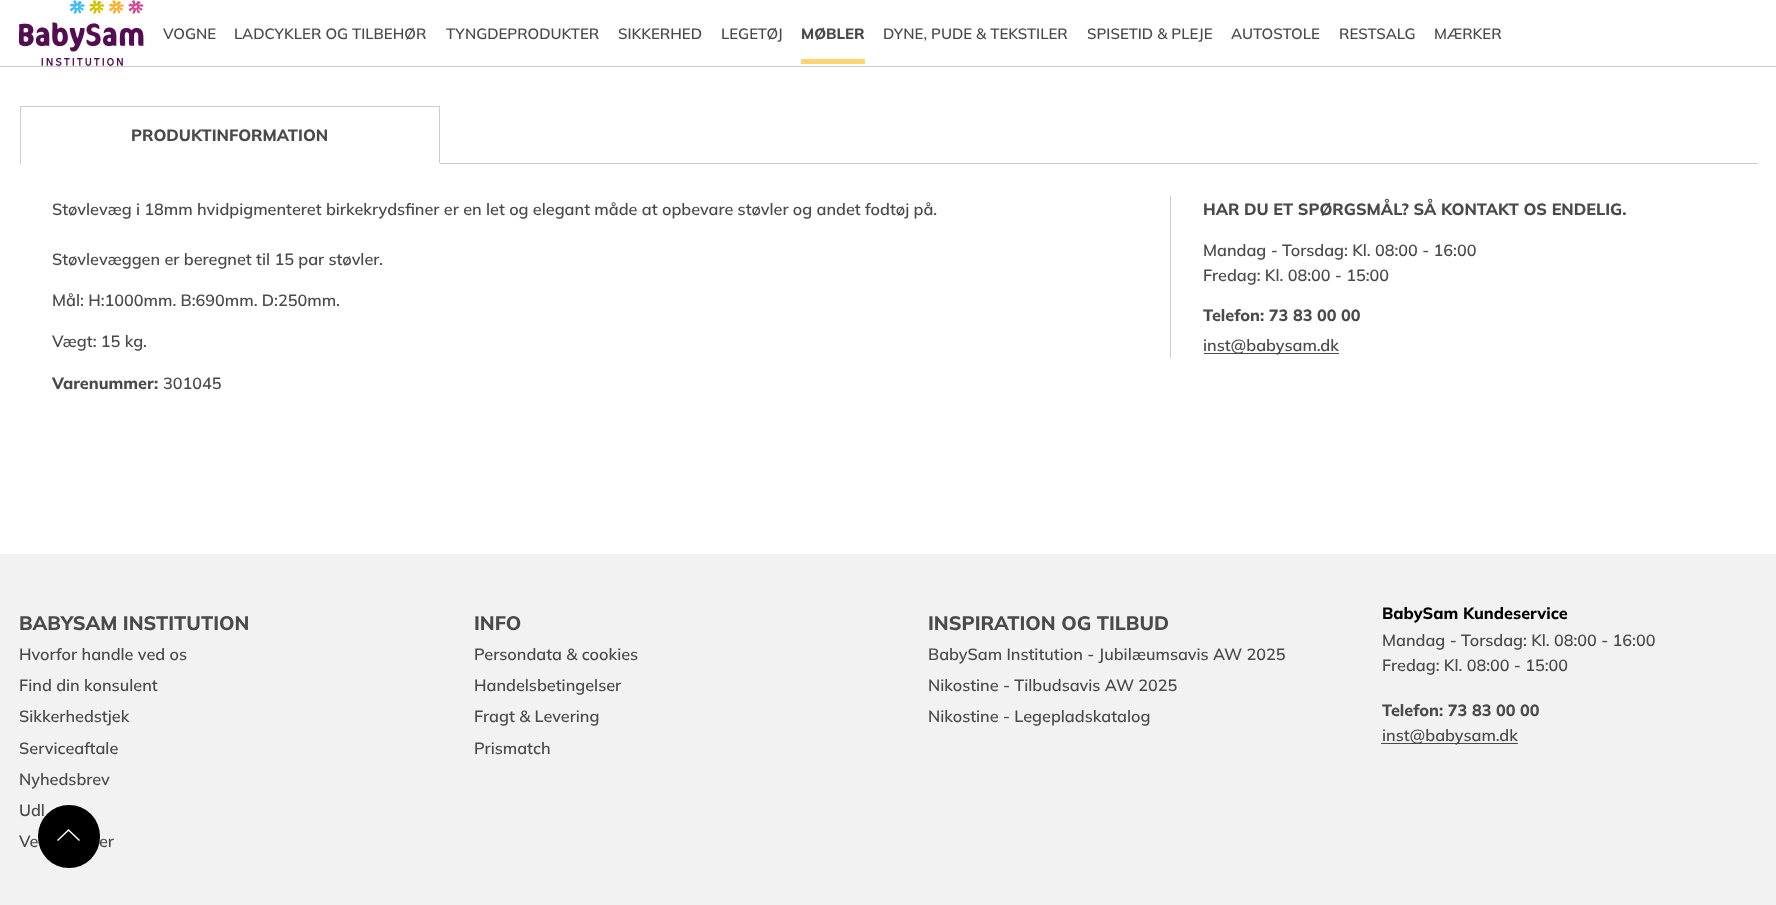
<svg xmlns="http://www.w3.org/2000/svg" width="1776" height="905">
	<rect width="100%" height="100%" fill="#FFFFFF" />
	<rect x="0" y="66" width="1776" height="1" fill="#CCCCCC" />
	<image x="19" y="0" width="125" height="66" href="assets/img1.png" />
	<g font-family="Mulish" font-size="15" font-weight="600" fill="#4A4A4A">
		<text x="163" y="39">VOGNE</text>
		<text x="234" y="39">LADCYKLER OG TILBEHØR</text>
		<text x="446" y="39">TYNGDEPRODUKTER</text>
		<text x="618" y="39">SIKKERHED</text>
		<text x="721" y="39">LEGETØJ</text>
	</g>
	<rect x="801" y="59" width="64" height="5" fill="#FFD571" />
	<text x="801" y="39" font-family="Mulish" font-size="15" font-weight="800" fill="#4A4A4A">MØBLER</text>
	<g font-family="Mulish" font-size="15" font-weight="600" fill="#4A4A4A">
		<text x="883" y="39">DYNE, PUDE &amp; TEKSTILER</text>
		<text x="1087" y="39">SPISETID &amp; PLEJE</text>
		<text x="1231" y="39">AUTOSTOLE</text>
		<text x="1339" y="39">RESTSALG</text>
		<text x="1434" y="39">MÆRKER</text>
	</g>
	<rect x="440" y="163" width="1318" height="1" fill="#CCCCCC" />
	<rect x="20" y="106" width="420" height="1" fill="#CCCCCC" />
	<rect x="439" y="106" width="1" height="58" fill="#CCCCCC" />
	<rect x="439" y="163" width="1" height="1" fill="#FFFFFF" />
	<rect x="20" y="106" width="1" height="58" fill="#CCCCCC" />
	<text x="131" y="141" font-family="Mulish" font-size="16.25" font-weight="800" fill="#4A4A4A">PRODUKTINFORMATION</text>
	<g font-family="Mulish" font-size="16.25" font-weight="600" fill="#4A4A4A">
		<text x="52" y="215">Støvlevæg i 18mm hvidpigmenteret birkekrydsfiner er en let og elegant måde at opbevare støvler og andet fodtøj på.</text>
		<text x="52" y="265">Støvlevæggen er beregnet til 15 par støvler.</text>
		<text x="52" y="306">Mål: H:1000mm. B:690mm. D:250mm.</text>
		<text x="52" y="347">Vægt: 15 kg.</text>
	</g>
	<text x="52" y="389" font-family="Mulish" font-size="16.25" font-weight="800" fill="#4A4A4A">Varenummer:</text>
	<text x="163" y="389" font-family="Mulish" font-size="16.25" font-weight="600" fill="#4A4A4A">301045</text>
	<rect x="1170" y="196" width="1" height="162" fill="#CCCCCC" />
	<text x="1203" y="215" font-family="Mulish" font-size="16.25" font-weight="800" fill="#4A4A4A">HAR DU ET SPØRGSMÅL? SÅ KONTAKT OS ENDELIG.</text>
	<g font-family="Mulish" font-size="16.25" font-weight="600" fill="#4A4A4A">
		<text x="1203" y="256">Mandag - Torsdag: Kl. 08:00 - 16:00</text>
		<text x="1203" y="281">Fredag: Kl. 08:00 - 15:00</text>
	</g>
	<text x="1203" y="321" font-family="Mulish" font-size="16.25" font-weight="800" fill="#4A4A4A">Telefon: 73 83 00 00</text>
	<rect x="1204" y="353" width="135" height="1" fill="#4A4A4A" />
	<text x="1203" y="351" font-family="Mulish" font-size="16.25" font-weight="600" fill="#4A4A4A">inst@babysam.dk</text>
	<rect x="0" y="554" width="1776" height="351" fill="#F2F2F2" />
	<text x="19" y="630" font-family="Mulish" font-size="19.5" font-weight="800" fill="#4A4A4A">BABYSAM INSTITUTION</text>
	<g font-family="Mulish" font-size="16.25" font-weight="600" fill="#4A4A4A">
		<text x="19" y="660">Hvorfor handle ved os</text>
		<text x="19" y="691">Find din konsulent</text>
		<text x="19" y="722">Sikkerhedstjek</text>
		<text x="19" y="754">Serviceaftale</text>
		<text x="19" y="785">Nyhedsbrev</text>
		<text x="19" y="816">Udl</text>
		<text x="19" y="847">Ve</text>
		<text x="99" y="847">er</text>
	</g>
	<text x="474" y="630" font-family="Mulish" font-size="19.5" font-weight="800" fill="#4A4A4A">INFO</text>
	<g font-family="Mulish" font-size="16.25" font-weight="600" fill="#4A4A4A">
		<text x="474" y="660">Persondata &amp; cookies</text>
		<text x="474" y="691">Handelsbetingelser</text>
		<text x="474" y="722">Fragt &amp; Levering</text>
		<text x="474" y="754">Prismatch</text>
	</g>
	<text x="928" y="630" font-family="Mulish" font-size="19.5" font-weight="800" fill="#4A4A4A">INSPIRATION OG TILBUD</text>
	<g font-family="Mulish" font-size="16.25" font-weight="600" fill="#4A4A4A">
		<text x="928" y="660">BabySam Institution - Jubilæumsavis AW 2025</text>
		<text x="928" y="691">Nikostine - Tilbudsavis AW 2025</text>
		<text x="928" y="722">Nikostine - Legepladskatalog</text>
	</g>
	<text x="1382" y="619" font-family="Mulish" font-size="16.25" font-weight="800" fill="#000000">BabySam Kundeservice</text>
	<g font-family="Mulish" font-size="16.25" font-weight="600" fill="#4A4A4A">
		<text x="1382" y="646">Mandag - Torsdag: Kl. 08:00 - 16:00</text>
		<text x="1382" y="671">Fredag: Kl. 08:00 - 15:00</text>
	</g>
	<text x="1382" y="716" font-family="Mulish" font-size="16.25" font-weight="800" fill="#4A4A4A">Telefon: 73 83 00 00</text>
	<rect x="1381" y="743" width="137" height="1" fill="#4A4A4A" />
	<text x="1382" y="741" font-family="Mulish" font-size="16.25" font-weight="600" fill="#4A4A4A">inst@babysam.dk</text>
	<rect x="38" y="805" width="62" height="63" rx="31" fill="#000000" />
	<path d="M79 841L68.5 831L58 841L57 840L68.5 829L80 840" fill="#FFFFFF" />
</svg>
